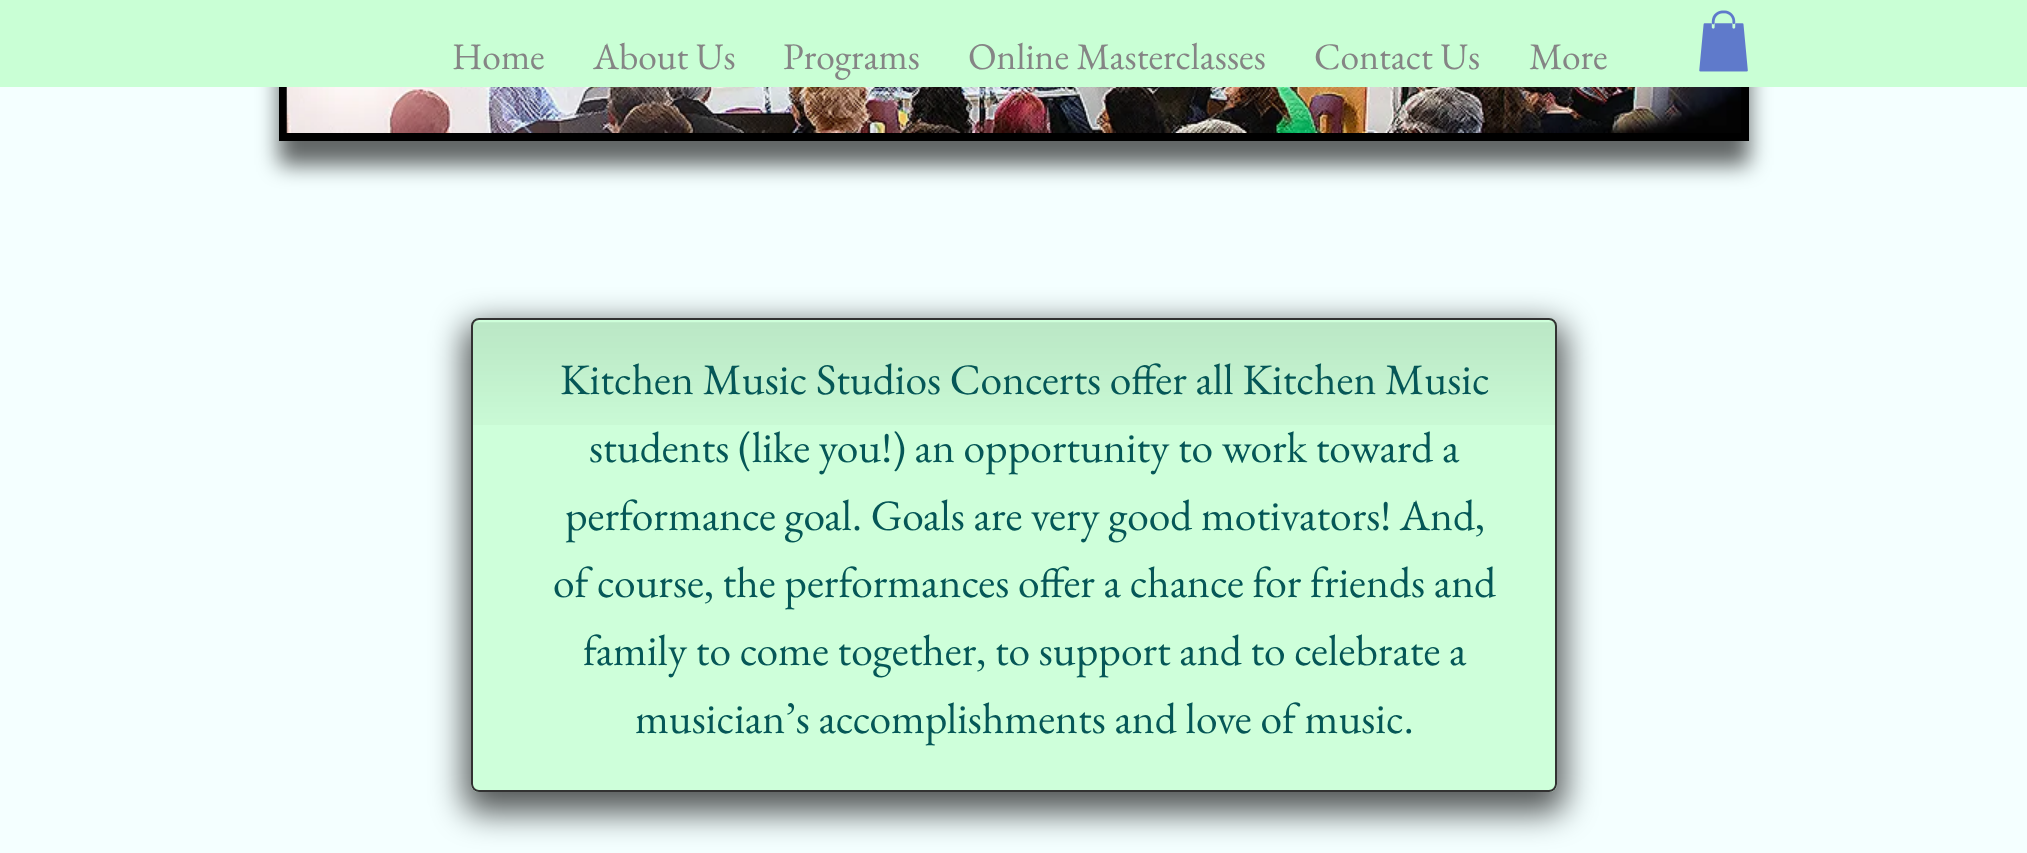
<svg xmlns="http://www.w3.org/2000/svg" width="2027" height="853">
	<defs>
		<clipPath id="clip1"><path d="M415 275H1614V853H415ZM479 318H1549C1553.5 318 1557 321.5 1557 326V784C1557 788.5 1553.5 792 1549 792H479C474.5 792 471 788.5 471 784V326C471 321.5 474.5 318 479 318Z" clip-rule="evenodd" /></clipPath>
	</defs>
	<rect width="100%" height="100%" fill="#F4FFFF" />
	<rect x="279" y="-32" width="1470" height="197" fill="#000000" fill-opacity="0.6" filter="blur(10.5px)" />
	<rect x="0" y="0" width="2027" height="87" fill="#C9FFD5" />
	<g font-family="EB Garamond" font-size="37.5" fill="#858585">
		<text x="452" y="69">Home</text>
		<text x="593" y="69">About Us</text>
		<text x="783" y="69">Programs</text>
		<text x="968" y="69">Online Masterclasses</text>
		<text x="1314" y="69">Contact Us</text>
		<text x="1529" y="69">More</text>
	</g>
	<image x="1699" y="10" width="49" height="62" href="assets/img1.png" />
	<rect x="279" y="87" width="1470" height="54" fill="#000000" />
	<image x="286" y="87" width="1456" height="46" href="assets/img2.png" />
	<g clip-path="url(#clip1)">
		<rect x="464" y="324" width="1101" height="489" rx="15" fill="#000000" fill-opacity="0.65" filter="blur(16px)" />
	</g>
	<rect x="471" y="318" width="1086" height="474" rx="8" fill="#C9FFD5" fill-opacity="0.89" />
	<image x="471" y="322" width="1086" height="103" href="assets/img3.png" />
	<rect x="472" y="319" width="1084" height="472" rx="7" fill="none" stroke="#323232" stroke-width="2" />
	<g font-family="EB Garamond" font-size="43.5" fill="#055757">
		<text x="560" y="394">Kitchen Music Studios Concerts offer all Kitchen Music</text>
		<text x="589" y="462">students (like you!) an opportunity to work toward a</text>
		<text x="565" y="530">performance goal. Goals are very good motivators! And,</text>
		<text x="553" y="597">of course, the performances offer a chance for friends and</text>
		<text x="583" y="665">family to come together, to support and to celebrate a</text>
		<text x="635" y="733">musician’s accomplishments and love of music.</text>
	</g>
</svg>
